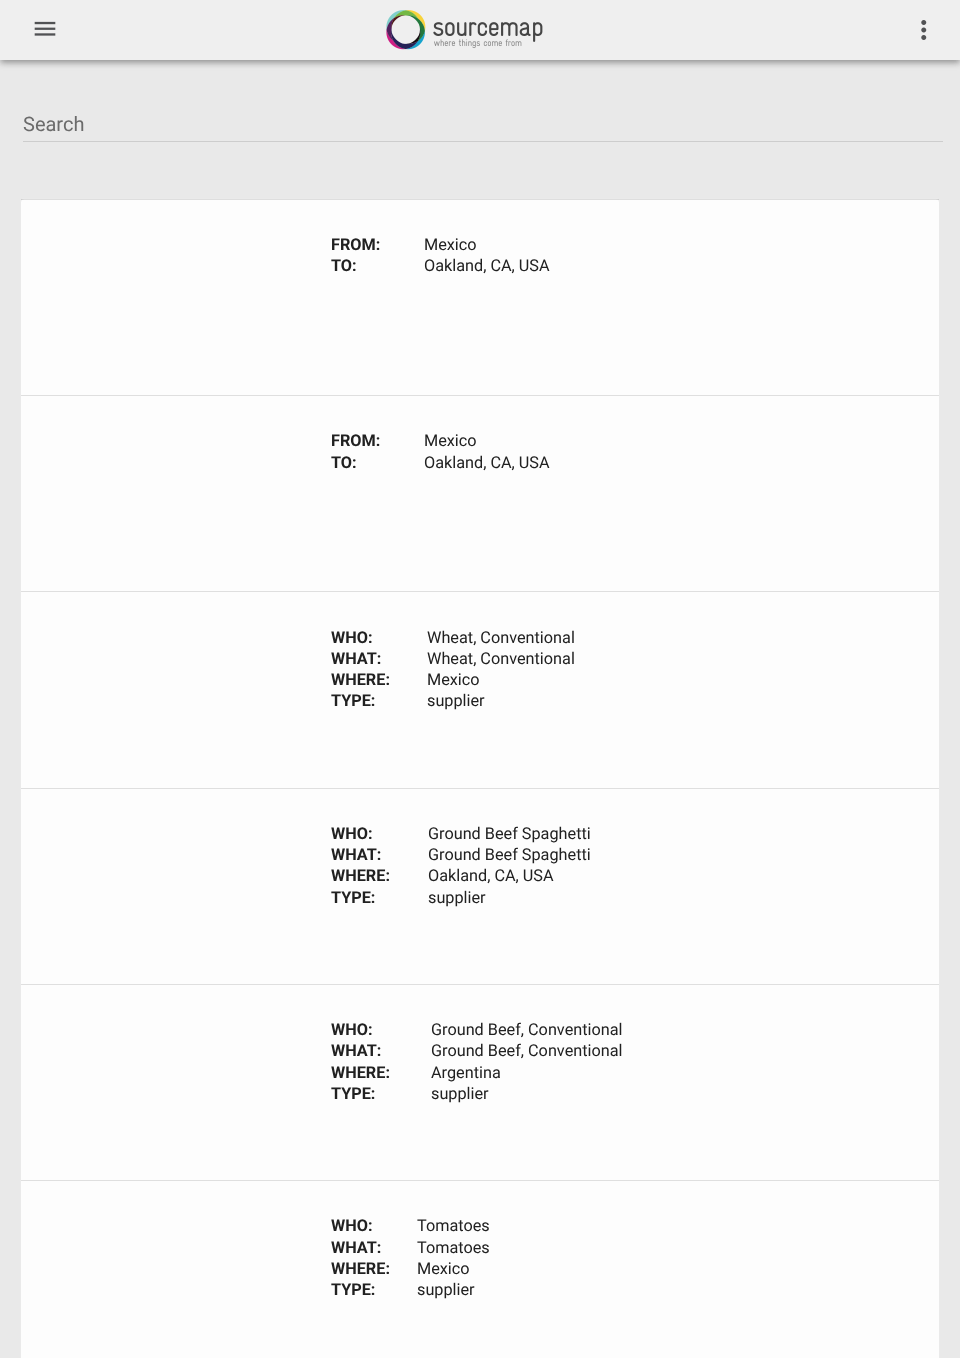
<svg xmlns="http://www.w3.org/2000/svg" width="960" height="1358">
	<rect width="100%" height="100%" fill="#E9E9E9" />
	<rect x="3" y="6" width="955" height="55" fill="#000000" fill-opacity="0.12" filter="blur(2px)" />
	<rect x="0" y="4" width="960" height="60" fill="#000000" fill-opacity="0.14" filter="blur(2.5px)" />
	<rect x="0" y="1" width="960" height="60" fill="#000000" fill-opacity="0.2" filter="blur(5px)" />
	<rect x="0" y="0" width="960" height="60" fill="#EFEFEF" />
	<image x="34" y="21" width="22" height="15" href="assets/img1.png" />
	<image x="386" y="10" width="157" height="40" href="assets/img2.png" />
	<image x="921" y="20" width="6" height="20" href="assets/img3.png" />
	<rect x="23" y="141" width="920" height="1" fill="#CDCDCD" />
	<text x="23" y="131" font-family="Roboto" font-size="20" fill="#6B6B6B">Search</text>
	<rect x="20.5" y="198.5" width="919" height="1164" rx="3.5" fill="#FDFDFD" stroke="#EAEAEA" />
	<rect x="21" y="199" width="918" height="1" fill="#000000" fill-opacity="0.12" />
	<text x="331" y="250" font-family="Roboto" font-size="16.25" font-weight="700" fill="#212121">FROM:</text>
	<text x="424" y="250" font-family="Roboto" font-size="16.25" fill="#212121">Mexico</text>
	<text x="331" y="271" font-family="Roboto" font-size="16.25" font-weight="700" fill="#212121">TO:</text>
	<text x="424" y="271" font-family="Roboto" font-size="16.25" fill="#212121">Oakland, CA, USA</text>
	<rect x="21" y="395" width="918" height="1" fill="#DFDFDF" />
	<text x="331" y="446" font-family="Roboto" font-size="16.25" font-weight="700" fill="#212121">FROM:</text>
	<text x="424" y="446" font-family="Roboto" font-size="16.25" fill="#212121">Mexico</text>
	<text x="331" y="468" font-family="Roboto" font-size="16.25" font-weight="700" fill="#212121">TO:</text>
	<text x="424" y="468" font-family="Roboto" font-size="16.25" fill="#212121">Oakland, CA, USA</text>
	<rect x="21" y="591" width="918" height="1" fill="#DFDFDF" />
	<text x="331" y="643" font-family="Roboto" font-size="16.25" font-weight="700" fill="#212121">WHO:</text>
	<text x="427" y="643" font-family="Roboto" font-size="16.25" fill="#212121">Wheat, Conventional</text>
	<text x="331" y="664" font-family="Roboto" font-size="16.25" font-weight="700" fill="#212121">WHAT:</text>
	<text x="427" y="664" font-family="Roboto" font-size="16.25" fill="#212121">Wheat, Conventional</text>
	<text x="331" y="685" font-family="Roboto" font-size="16.25" font-weight="700" fill="#212121">WHERE:</text>
	<text x="427" y="685" font-family="Roboto" font-size="16.25" fill="#212121">Mexico</text>
	<text x="331" y="706" font-family="Roboto" font-size="16.25" font-weight="700" fill="#212121">TYPE:</text>
	<text x="427" y="706" font-family="Roboto" font-size="16.25" fill="#212121">supplier</text>
	<rect x="21" y="788" width="918" height="1" fill="#DFDFDF" />
	<text x="331" y="839" font-family="Roboto" font-size="16.25" font-weight="700" fill="#212121">WHO:</text>
	<text x="428" y="839" font-family="Roboto" font-size="16.25" fill="#212121">Ground Beef Spaghetti</text>
	<text x="331" y="860" font-family="Roboto" font-size="16.25" font-weight="700" fill="#212121">WHAT:</text>
	<text x="428" y="860" font-family="Roboto" font-size="16.25" fill="#212121">Ground Beef Spaghetti</text>
	<text x="331" y="881" font-family="Roboto" font-size="16.25" font-weight="700" fill="#212121">WHERE:</text>
	<text x="428" y="881" font-family="Roboto" font-size="16.25" fill="#212121">Oakland, CA, USA</text>
	<text x="331" y="903" font-family="Roboto" font-size="16.25" font-weight="700" fill="#212121">TYPE:</text>
	<text x="428" y="903" font-family="Roboto" font-size="16.25" fill="#212121">supplier</text>
	<rect x="21" y="984" width="918" height="1" fill="#DFDFDF" />
	<text x="331" y="1035" font-family="Roboto" font-size="16.25" font-weight="700" fill="#212121">WHO:</text>
	<text x="431" y="1035" font-family="Roboto" font-size="16.25" fill="#212121">Ground Beef, Conventional</text>
	<text x="331" y="1056" font-family="Roboto" font-size="16.25" font-weight="700" fill="#212121">WHAT:</text>
	<text x="431" y="1056" font-family="Roboto" font-size="16.25" fill="#212121">Ground Beef, Conventional</text>
	<text x="331" y="1078" font-family="Roboto" font-size="16.25" font-weight="700" fill="#212121">WHERE:</text>
	<text x="431" y="1078" font-family="Roboto" font-size="16.25" fill="#212121">Argentina</text>
	<text x="331" y="1099" font-family="Roboto" font-size="16.25" font-weight="700" fill="#212121">TYPE:</text>
	<text x="431" y="1099" font-family="Roboto" font-size="16.25" fill="#212121">supplier</text>
	<rect x="21" y="1180" width="918" height="1" fill="#DFDFDF" />
	<text x="331" y="1231" font-family="Roboto" font-size="16.25" font-weight="700" fill="#212121">WHO:</text>
	<text x="417" y="1231" font-family="Roboto" font-size="16.25" fill="#212121">Tomatoes</text>
	<text x="331" y="1253" font-family="Roboto" font-size="16.25" font-weight="700" fill="#212121">WHAT:</text>
	<text x="417" y="1253" font-family="Roboto" font-size="16.25" fill="#212121">Tomatoes</text>
	<text x="331" y="1274" font-family="Roboto" font-size="16.25" font-weight="700" fill="#212121">WHERE:</text>
	<text x="417" y="1274" font-family="Roboto" font-size="16.25" fill="#212121">Mexico</text>
	<text x="331" y="1295" font-family="Roboto" font-size="16.25" font-weight="700" fill="#212121">TYPE:</text>
	<text x="417" y="1295" font-family="Roboto" font-size="16.25" fill="#212121">supplier</text>
</svg>
